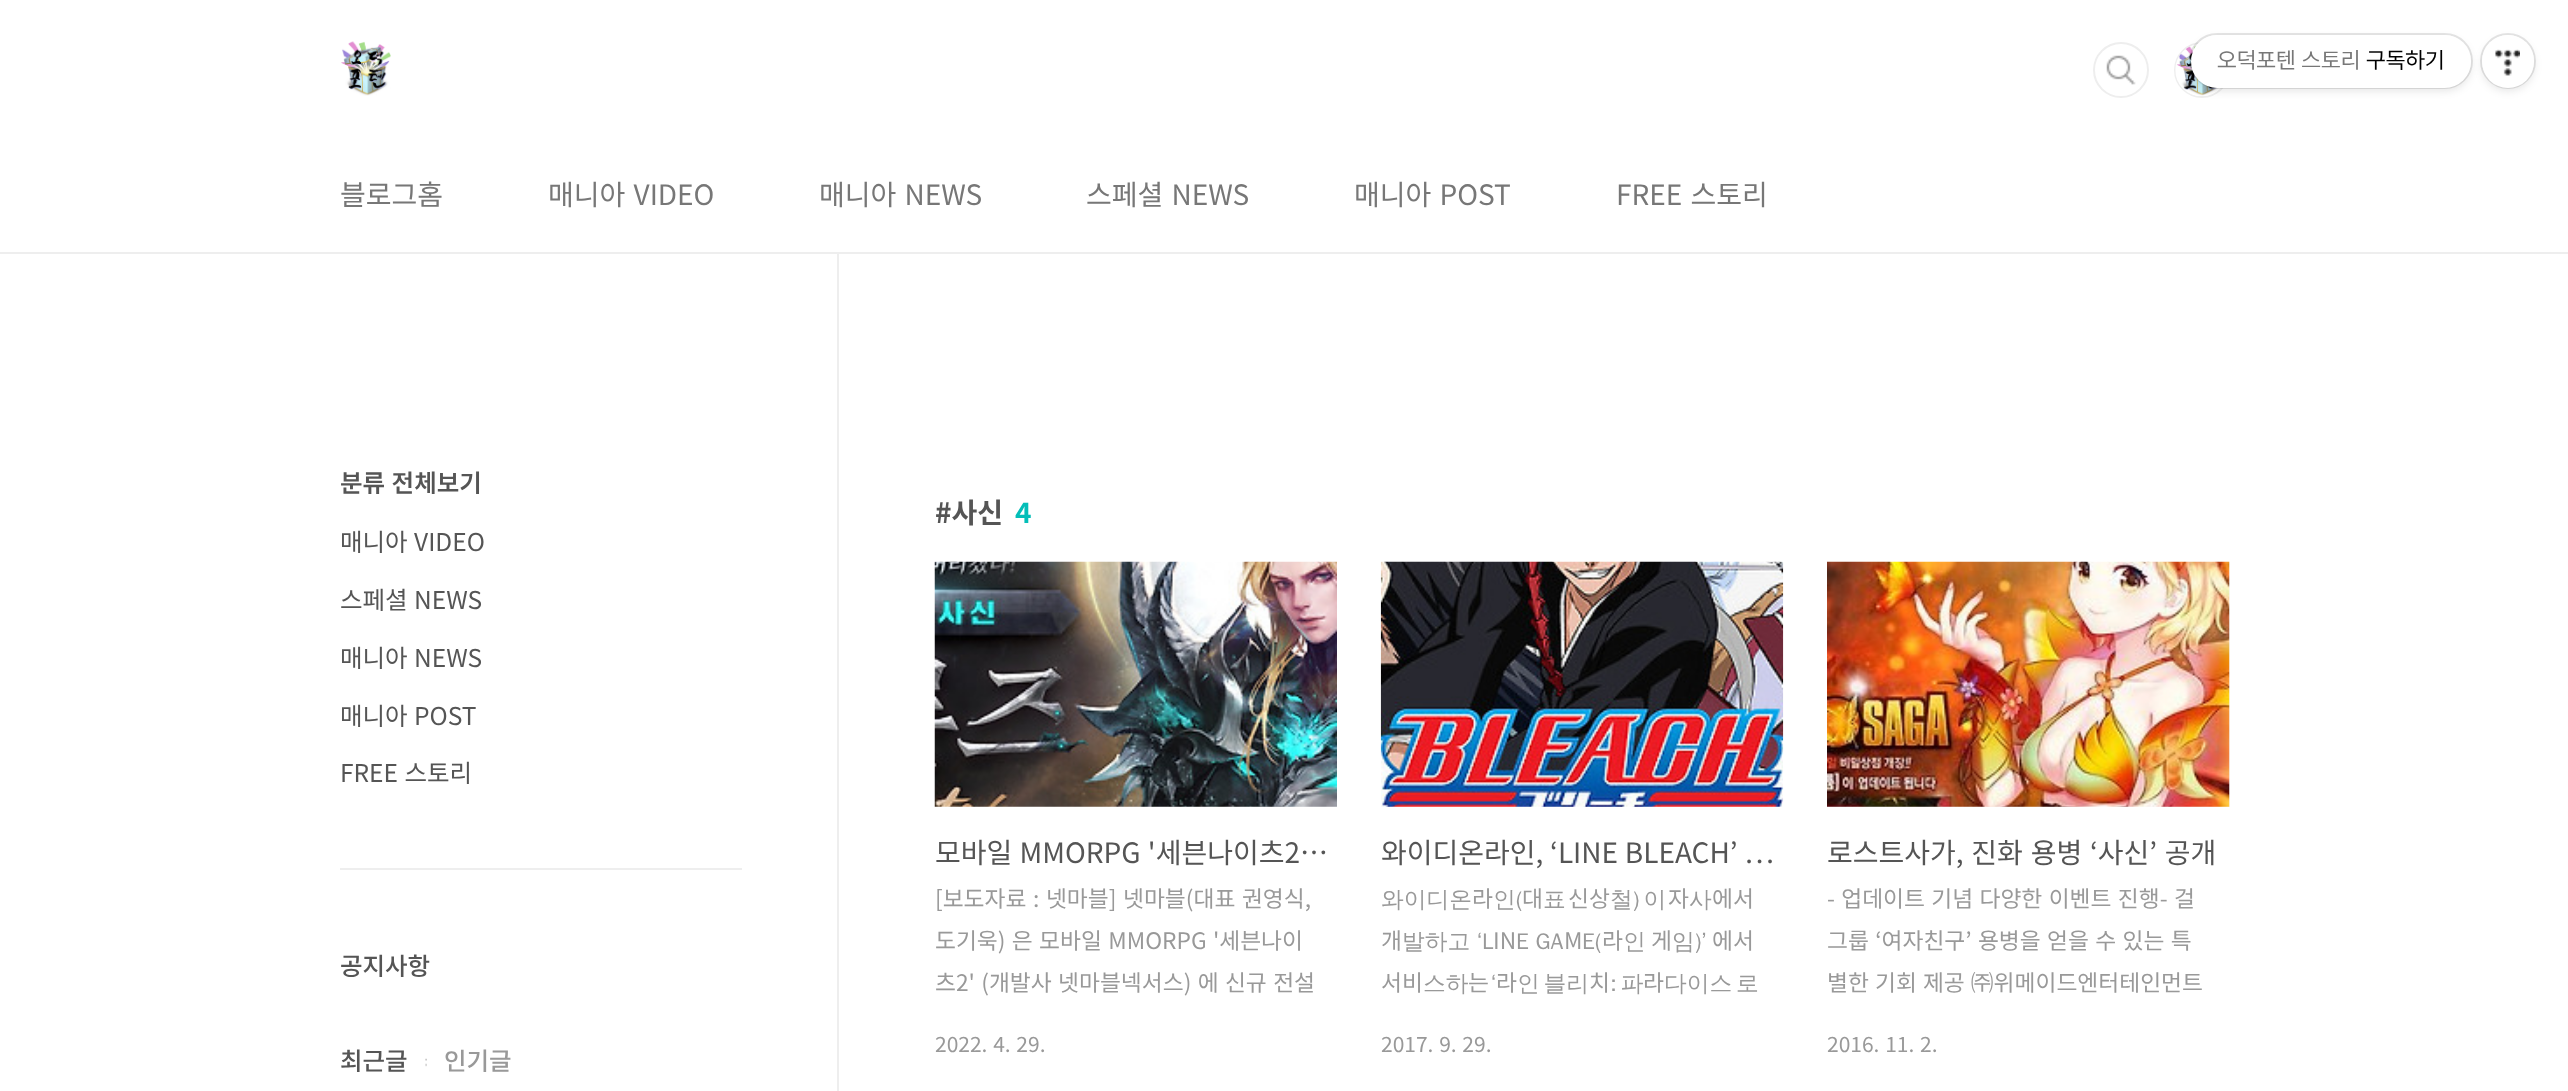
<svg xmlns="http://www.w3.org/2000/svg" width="2568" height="1091">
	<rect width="100%" height="100%" fill="#FFFFFF" />
	<rect x="2482" y="39" width="52" height="52" rx="26" fill="#000000" fill-opacity="0.1" filter="blur(4.5px)" />
	<circle cx="2508" cy="61" r="27" fill="none" stroke="#000000" stroke-opacity="0.1" stroke-width="2" />
	<rect x="2482" y="35" width="52" height="53" rx="26" fill="#FFFFFF" />
	<circle cx="2202" cy="70" r="27" fill="none" stroke="#EEEEEE" stroke-width="2" />
	<image x="2175" y="44" width="46" height="52" href="assets/img4.png" />
	<rect x="2191" y="39" width="280" height="52" rx="26" fill="#000000" fill-opacity="0.1" filter="blur(4.5px)" />
	<rect x="2190" y="34" width="282" height="54" rx="27" fill="none" stroke="#000000" stroke-opacity="0.1" stroke-width="2" />
	<rect x="2191" y="35" width="280" height="53" rx="26.5" fill="#FFFFFF" />
	<text x="2217" y="68" font-family="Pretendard" font-size="22.75" fill="#777777">오덕포텐 스토리</text>
	<text x="2366" y="68" font-family="Pretendard" font-size="22.75" fill="#000000">구독하기</text>
	<image x="2495" y="49" width="25" height="27" href="assets/img1.png" />
	<rect x="0" y="252" width="2568" height="2" fill="#EEEEEE" />
	<image x="341" y="41" width="50" height="55" href="assets/img2.png" />
	<image x="2106" y="55" width="30" height="30" href="assets/img3.png" />
	<circle cx="2121" cy="70" r="27" fill="none" stroke="#EEEEEE" stroke-width="2" />
	<g font-family="Noto Sans KR" font-size="28" fill="#777777">
		<text x="340" y="205">블로그홈</text>
		<text x="548" y="205" word-spacing="2">매니아 VIDEO</text>
		<text x="819" y="205" word-spacing="2">매니아 NEWS</text>
		<text x="1086" y="205" word-spacing="2">스페셜 NEWS</text>
		<text x="1354" y="205" word-spacing="2">매니아 POST</text>
		<text x="1616" y="205" word-spacing="2">FREE 스토리</text>
	</g>
	<text x="340" y="492" word-spacing="1" font-family="Noto Sans KR" font-size="24.5" font-weight="600" fill="#555555">분류 전체보기</text>
	<g font-family="Noto Sans KR" font-size="24.5" fill="#555555">
		<text x="340" y="551" word-spacing="1">매니아 VIDEO</text>
		<text x="340" y="609" word-spacing="1">스페셜 NEWS</text>
		<text x="340" y="667" word-spacing="1">매니아 NEWS</text>
		<text x="340" y="725" word-spacing="1">매니아 POST</text>
		<text x="340" y="782" word-spacing="1">FREE 스토리</text>
	</g>
	<rect x="340" y="868" width="402" height="2" fill="#EEEEEE" />
	<g font-family="Noto Sans KR" font-size="24.5" font-weight="500" fill="#555555">
		<text x="340" y="975">공지사항</text>
		<text x="340" y="1070">최근글</text>
	</g>
	<image x="425" y="1058" width="2" height="9" href="assets/img5.png" />
	<text x="444" y="1070" font-family="Noto Sans KR" font-size="24.5" font-weight="500" fill="#999999">인기글</text>
	<rect x="837" y="254" width="2" height="837" fill="#EEEEEE" />
	<text x="935" y="523" font-family="Noto Sans KR" font-size="28" font-weight="700" fill="#555555">#사신</text>
	<text x="1015" y="523" font-family="Noto Sans KR" font-size="28" font-weight="700" fill="#04BEB8">4</text>
	<image x="934" y="561" width="403" height="246" href="assets/img6.png" />
	<text x="935" y="863" word-spacing="1" font-family="Noto Sans KR" font-size="28" fill="#555555">모바일 MMORPG '세븐나이츠2…</text>
	<g font-family="Noto Sans KR" font-size="22.75" fill="#999999">
		<text x="935" y="907" word-spacing="1.5">[보도자료 : 넷마블] 넷마블(대표 권영식,</text>
		<text x="935" y="949" word-spacing="1.25">도기욱) 은 모바일 MMORPG '세븐나이</text>
		<text x="935" y="991" word-spacing="1.25">츠2' (개발사 넷마블넥서스) 에 신규 전설</text>
	</g>
	<text x="935" y="1052" word-spacing="1" font-family="Noto Sans KR" font-size="21" fill="#999999">2022. 4. 29.</text>
	<image x="1380" y="561" width="404" height="246" href="assets/img7.png" />
	<text x="1381" y="863" word-spacing="0.5" font-family="Noto Sans KR" font-size="28" fill="#555555">와이디온라인, ‘LINE BLEACH’ …</text>
	<text x="1381" y="907" font-family="WenQuanYi Zen Hei" font-size="22.75" font-weight="500" fill="#999999">와이디온</text>
	<text x="1472" y="907" font-family="Noto Sans KR" font-size="22.75" fill="#999999">라</text>
	<text x="1493" y="907" font-family="WenQuanYi Zen Hei" font-size="22.75" font-weight="500" fill="#999999">인(</text>
	<text x="1522" y="907" font-family="Noto Sans KR" font-size="22.75" fill="#999999">대</text>
	<text x="1543" y="907" font-family="WenQuanYi Zen Hei" font-size="22.75" font-weight="500" fill="#999999">표</text>
	<text x="1568" y="907" font-family="Noto Sans KR" font-size="22.75" fill="#999999">신상</text>
	<text x="1610" y="907" word-spacing="-3" font-family="WenQuanYi Zen Hei" font-size="22.75" font-weight="500" fill="#999999">철) 이</text>
	<text x="1668" y="907" font-family="Noto Sans KR" font-size="22.75" fill="#999999">자</text>
	<text x="1689" y="907" font-family="WenQuanYi Zen Hei" font-size="22.75" font-weight="500" fill="#999999">사</text>
	<g font-family="Noto Sans KR" font-size="22.75" fill="#999999">
		<text x="1712" y="907">에서</text>
		<text x="1381" y="949">개</text>
	</g>
	<text x="1402" y="949" font-family="WenQuanYi Zen Hei" font-size="22.75" font-weight="500" fill="#999999">발하고 ‘L</text>
	<text x="1493" y="949" font-family="Noto Sans KR" font-size="22.75" fill="#999999">IN</text>
	<text x="1516" y="949" font-family="WenQuanYi Zen Hei" font-size="22.75" font-weight="500" fill="#999999">E GA</text>
	<text x="1564" y="949" font-family="Noto Sans KR" font-size="22.75" fill="#999999">M</text>
	<text x="1582" y="949" font-family="WenQuanYi Zen Hei" font-size="22.75" font-weight="500" fill="#999999">E(</text>
	<text x="1602" y="949" font-family="Noto Sans KR" font-size="22.75" fill="#999999">라</text>
	<text x="1623" y="949" font-family="WenQuanYi Zen Hei" font-size="22.75" font-weight="500" fill="#999999">인</text>
	<text x="1651" y="949" font-family="Noto Sans KR" font-size="22.75" fill="#999999">게</text>
	<text x="1672" y="949" font-family="WenQuanYi Zen Hei" font-size="22.75" font-weight="500" fill="#999999">임)’</text>
	<g font-family="Noto Sans KR" font-size="22.75" fill="#999999">
		<text x="1712" y="949">에서</text>
		<text x="1381" y="991">서비</text>
	</g>
	<text x="1423" y="991" font-family="WenQuanYi Zen Hei" font-size="22.75" font-weight="500" fill="#999999">스하</text>
	<text x="1468" y="991" font-family="Noto Sans KR" font-size="22.75" fill="#999999">는</text>
	<text x="1491" y="991" font-family="WenQuanYi Zen Hei" font-size="22.75" font-weight="500" fill="#999999">‘</text>
	<text x="1496" y="991" font-family="Noto Sans KR" font-size="22.75" fill="#999999">라</text>
	<text x="1517" y="991" word-spacing="-3" font-family="WenQuanYi Zen Hei" font-size="22.75" font-weight="500" fill="#999999">인 블리</text>
	<text x="1589" y="991" font-family="Noto Sans KR" font-size="22.75" fill="#999999">치</text>
	<text x="1610" y="991" word-spacing="-3" font-family="WenQuanYi Zen Hei" font-size="22.75" font-weight="500" fill="#999999">: 파</text>
	<text x="1643" y="991" font-family="Noto Sans KR" font-size="22.75" fill="#999999">라</text>
	<text x="1664" y="991" word-spacing="-3" font-family="WenQuanYi Zen Hei" font-size="22.75" font-weight="500" fill="#999999">다이스 로</text>
	<text x="1381" y="1052" word-spacing="1" font-family="Noto Sans KR" font-size="21" fill="#999999">2017. 9. 29.</text>
	<rect x="1827" y="562" width="403" height="245" fill="#F8F8F8" />
	<image x="1827" y="561" width="403" height="246" href="assets/img8.png" />
	<text x="1827" y="863" word-spacing="1.5" font-family="Noto Sans KR" font-size="28" fill="#555555">로스트사가, 진화 용병 ‘사신’ 공개</text>
	<g font-family="Noto Sans KR" font-size="22.75" fill="#999999">
		<text x="1827" y="907" word-spacing="1.25">- 업데이트 기념 다양한 이벤트 진행- 걸</text>
		<text x="1827" y="949" word-spacing="1.25">그룹 ‘여자친구’ 용병을 얻을 수 있는 특</text>
		<text x="1827" y="991" word-spacing="1">별한 기회 제공 ㈜위메이드엔터테인먼트</text>
	</g>
	<text x="1827" y="1052" word-spacing="1" font-family="Noto Sans KR" font-size="21" fill="#999999">2016. 11. 2.</text>
</svg>
